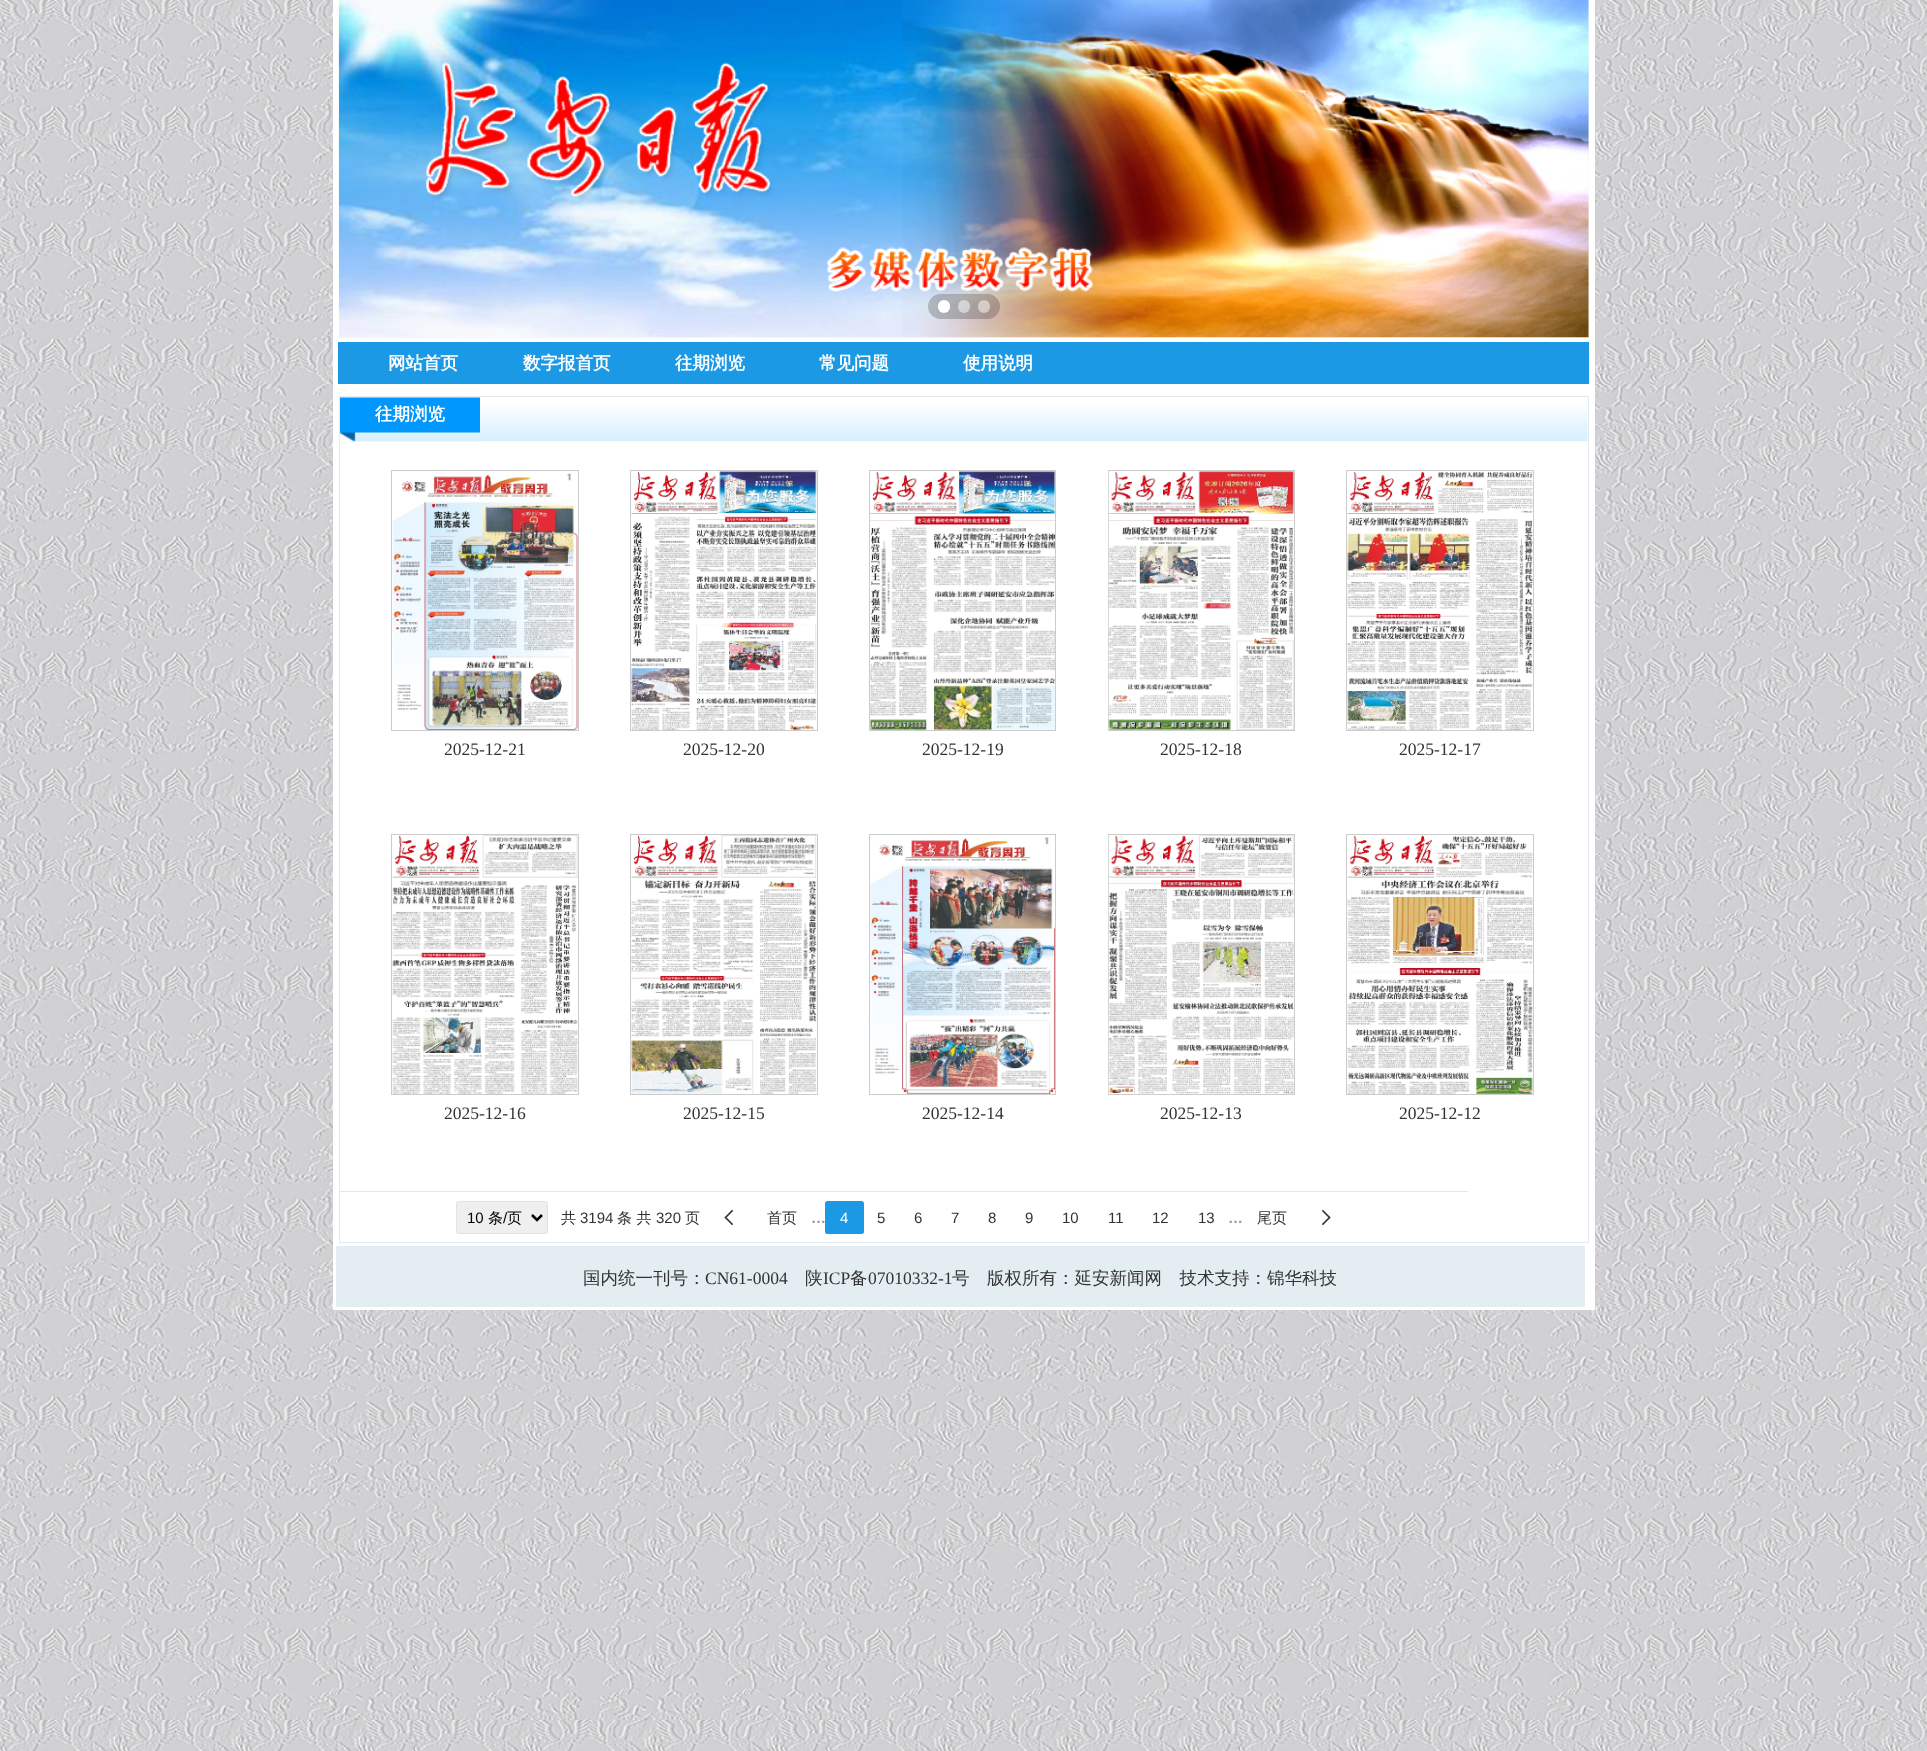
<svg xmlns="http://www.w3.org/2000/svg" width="1927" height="1751">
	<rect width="100%" height="100%" fill="#FFFFFF" />
	<image x="0" y="0" width="1927" height="1751" href="assets/img1.png" />
	<rect x="333" y="0" width="1262" height="1310" fill="#FFFFFF" />
	<rect x="339" y="0" width="1250" height="338" fill="#F8F8F8" />
	<image x="338" y="0" width="1251" height="338" href="assets/img2.png" />
	<rect x="928" y="294" width="72" height="25" rx="12.5" fill="#000000" fill-opacity="0.2" />
	<rect x="938" y="300" width="12" height="13" rx="6" fill="#FFFFFF" />
	<rect x="958" y="300" width="12" height="13" rx="6" fill="#FFFFFF" fill-opacity="0.5" />
	<rect x="978" y="300" width="12" height="13" rx="6" fill="#FFFFFF" fill-opacity="0.5" />
	<rect x="338" y="342" width="1251" height="42" fill="#1B99E5" />
	<g font-family="WenQuanYi Zen Hei" font-size="17.5" font-weight="700" fill="#FFFFFF">
		<text x="388" y="369">网站首页</text>
		<text x="523" y="369">数字报首页</text>
		<text x="675" y="369">往期浏览</text>
		<text x="819" y="369">常见问题</text>
		<text x="963" y="369">使用说明</text>
	</g>
	<rect x="339.5" y="396.5" width="1249" height="846" fill="none" stroke="#E2E9F1" />
	<image x="340" y="405" width="1248" height="37" href="assets/img3.png" />
	<image x="340" y="397" width="140" height="45" href="assets/img4.png" />
	<text x="375" y="420" font-family="WenQuanYi Zen Hei" font-size="17.5" font-weight="700" fill="#FFFFFF">往期浏览</text>
	<rect x="391.5" y="470.5" width="187" height="260" fill="none" stroke="#CCCCCC" />
	<image x="392" y="473" width="186" height="257" href="assets/img5.png" />
	<text x="444" y="755" font-family="Liberation Serif" font-size="17.5" fill="#333333">2025-12-21</text>
	<rect x="630.5" y="470.5" width="187" height="260" fill="none" stroke="#CCCCCC" />
	<image x="631" y="471" width="186" height="259" href="assets/img6.png" />
	<text x="683" y="755" font-family="Liberation Serif" font-size="17.5" fill="#333333">2025-12-20</text>
	<rect x="869.5" y="470.5" width="186" height="260" fill="none" stroke="#CCCCCC" />
	<image x="870" y="471" width="185" height="259" href="assets/img7.png" />
	<text x="922" y="755" font-family="Liberation Serif" font-size="17.5" fill="#333333">2025-12-19</text>
	<rect x="1108.5" y="470.5" width="186" height="260" fill="none" stroke="#CCCCCC" />
	<image x="1108" y="471" width="186" height="259" href="assets/img8.png" />
	<text x="1160" y="755" font-family="Liberation Serif" font-size="17.5" fill="#333333">2025-12-18</text>
	<rect x="1346.5" y="470.5" width="187" height="260" fill="none" stroke="#CCCCCC" />
	<image x="1347" y="471" width="186" height="259" href="assets/img9.png" />
	<text x="1399" y="755" font-family="Liberation Serif" font-size="17.5" fill="#333333">2025-12-17</text>
	<rect x="391.5" y="834.5" width="187" height="260" fill="none" stroke="#CCCCCC" />
	<image x="392" y="835" width="186" height="259" href="assets/img10.png" />
	<text x="444" y="1119" font-family="Liberation Serif" font-size="17.5" fill="#333333">2025-12-16</text>
	<rect x="630.5" y="834.5" width="187" height="260" fill="none" stroke="#CCCCCC" />
	<image x="631" y="835" width="186" height="259" href="assets/img11.png" />
	<text x="683" y="1119" font-family="Liberation Serif" font-size="17.5" fill="#333333">2025-12-15</text>
	<rect x="869.5" y="834.5" width="186" height="260" fill="none" stroke="#CCCCCC" />
	<image x="870" y="837" width="185" height="257" href="assets/img12.png" />
	<text x="922" y="1119" font-family="Liberation Serif" font-size="17.5" fill="#333333">2025-12-14</text>
	<rect x="1108.5" y="834.5" width="186" height="260" fill="none" stroke="#CCCCCC" />
	<image x="1108" y="835" width="186" height="259" href="assets/img13.png" />
	<text x="1160" y="1119" font-family="Liberation Serif" font-size="17.5" fill="#333333">2025-12-13</text>
	<rect x="1346.5" y="834.5" width="187" height="260" fill="none" stroke="#CCCCCC" />
	<image x="1347" y="835" width="186" height="259" href="assets/img14.png" />
	<text x="1399" y="1119" font-family="Liberation Serif" font-size="17.5" fill="#333333">2025-12-12</text>
	<rect x="340" y="1191" width="1128" height="1" fill="#E6E6E6" />
	<rect x="456.5" y="1201.5" width="91" height="32" rx="2" fill="#EFEFEF" stroke="#E2E2E2" />
	<path d="M532 1215L537 1220L542 1215" fill="none" stroke="#000000" stroke-width="2.5" />
	<text x="467" y="1223" font-family="Liberation Sans" font-size="15" fill="#000000">10</text>
	<text x="488" y="1223" font-family="WenQuanYi Zen Hei" font-size="15" font-weight="500" fill="#000000">条</text>
	<text x="503" y="1223" font-family="Liberation Sans" font-size="15" fill="#000000">/</text>
	<text x="507" y="1223" font-family="WenQuanYi Zen Hei" font-size="15" font-weight="500" fill="#000000">页</text>
	<text x="561" y="1223" font-family="WenQuanYi Zen Hei" font-size="15" font-weight="500" fill="#333333">共</text>
	<text x="580" y="1223" font-family="Liberation Sans" font-size="15" fill="#333333">3194</text>
	<text x="617" y="1223" font-family="WenQuanYi Zen Hei" font-size="15" font-weight="500" fill="#333333">条 共</text>
	<text x="656" y="1223" font-family="Liberation Sans" font-size="15" fill="#333333">320</text>
	<text x="685" y="1223" font-family="WenQuanYi Zen Hei" font-size="15" font-weight="500" fill="#333333">页</text>
	<image x="724" y="1209" width="10" height="17" href="assets/img15.png" />
	<text x="767" y="1223" font-family="WenQuanYi Zen Hei" font-size="15" font-weight="500" fill="#333333">首页</text>
	<text x="811" y="1223" font-family="Liberation Sans" font-size="15" font-weight="700" fill="#999999">…</text>
	<rect x="825" y="1201" width="39" height="33" rx="2.5" fill="#1B99E5" />
	<text x="840" y="1223" font-family="Liberation Sans" font-size="15" fill="#FFFFFF">4</text>
	<g font-family="Liberation Sans" font-size="15" fill="#333333">
		<text x="877" y="1223">5</text>
		<text x="914" y="1223">6</text>
		<text x="951" y="1223">7</text>
		<text x="988" y="1223">8</text>
		<text x="1025" y="1223">9</text>
		<text x="1062" y="1223">10</text>
		<text x="1108" y="1223">11</text>
		<text x="1152" y="1223">12</text>
		<text x="1198" y="1223">13</text>
	</g>
	<text x="1228" y="1223" font-family="Liberation Sans" font-size="15" font-weight="700" fill="#999999">…</text>
	<text x="1257" y="1223" font-family="WenQuanYi Zen Hei" font-size="15" font-weight="500" fill="#333333">尾页</text>
	<image x="1321" y="1209" width="10" height="17" href="assets/img16.png" />
	<rect x="336" y="1246" width="1249" height="61" fill="#E4EDF2" />
	<text x="583" y="1284" font-family="WenQuanYi Zen Hei" font-size="17.5" font-weight="500" fill="#333333">国内统一刊号：</text>
	<text x="705" y="1284" font-family="Liberation Serif" font-size="17.5" fill="#333333">CN61-0004</text>
	<text x="805" y="1284" font-family="WenQuanYi Zen Hei" font-size="17.5" font-weight="500" fill="#333333">陕</text>
	<text x="823" y="1284" font-family="Liberation Serif" font-size="17.5" fill="#333333">ICP</text>
	<text x="850" y="1284" font-family="WenQuanYi Zen Hei" font-size="17.5" font-weight="500" fill="#333333">备</text>
	<text x="868" y="1284" font-family="Liberation Serif" font-size="17.5" fill="#333333">07010332-1</text>
	<text x="952" y="1284" font-family="WenQuanYi Zen Hei" font-size="17.5" font-weight="500" fill="#333333">号　版权所有：延安新闻网　技术支持：锦华科技</text>
</svg>
